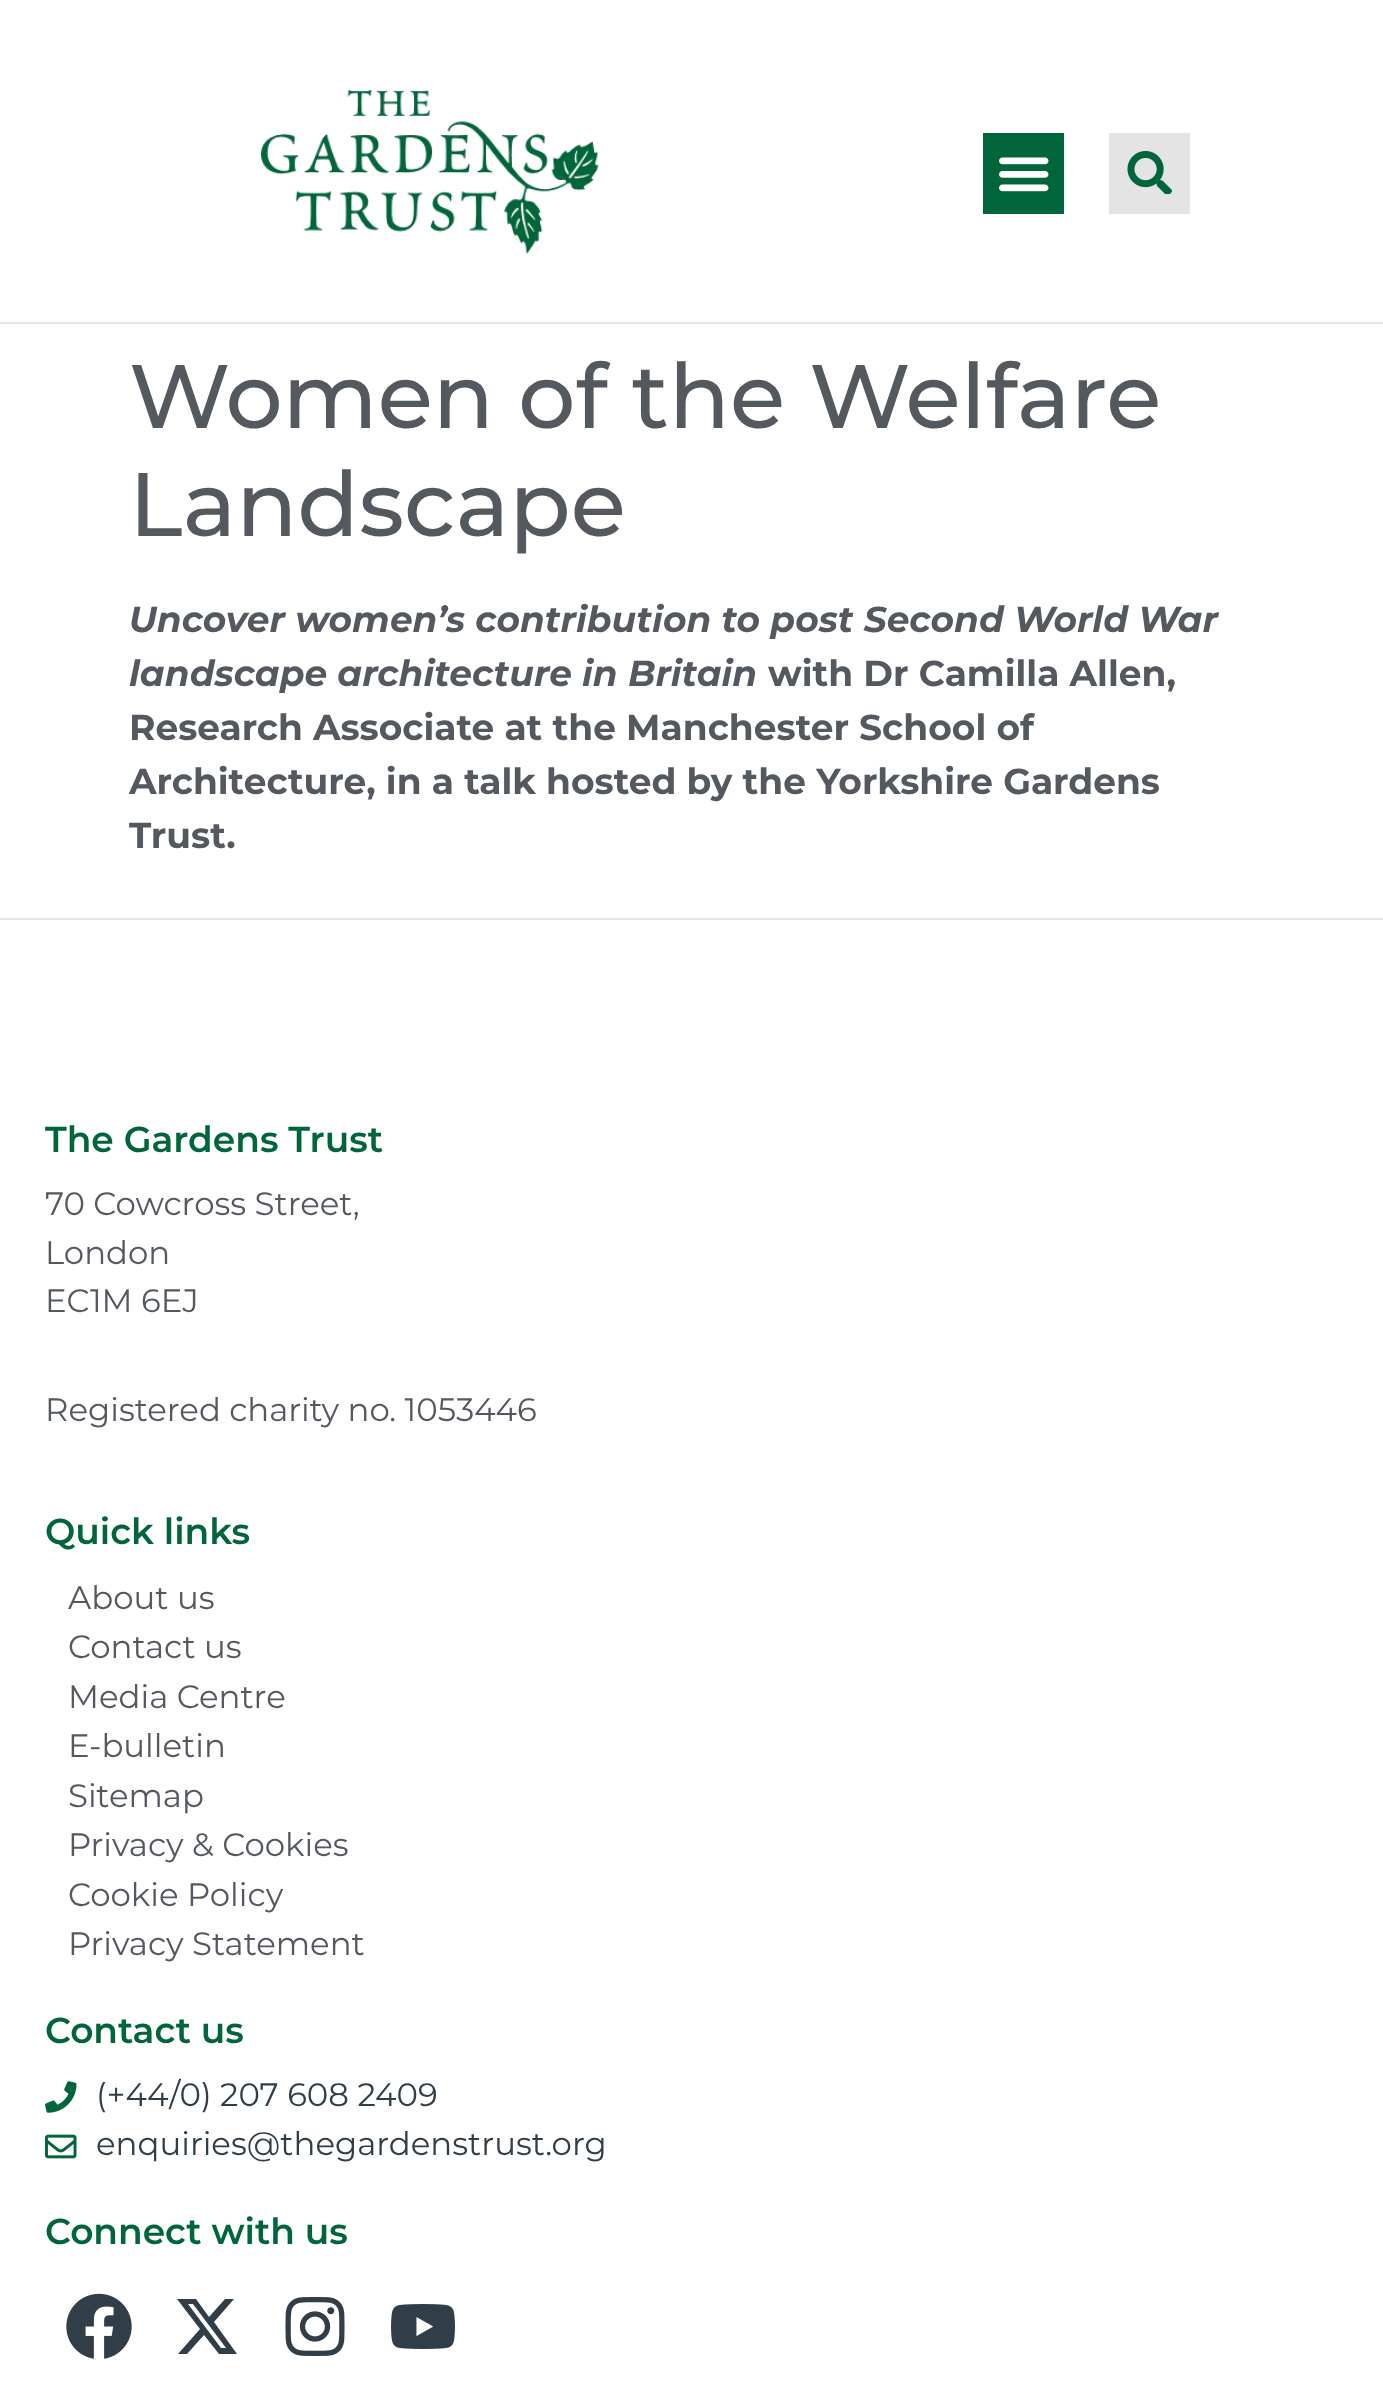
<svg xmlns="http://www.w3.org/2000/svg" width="1383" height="2402">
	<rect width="100%" height="100%" fill="#FFFFFF" />
	<rect x="0" y="322" width="1383" height="2" fill="#E4E4E4" />
	<image x="261" y="90" width="338" height="164" href="assets/img1.png" />
	<rect x="983" y="133" width="81" height="81" fill="#00653A" />
	<image x="999" y="157" width="50" height="35" href="assets/img2.png" />
	<rect x="1109" y="133" width="81" height="81" fill="#E4E4E4" />
	<image x="1127" y="151" width="45" height="43" href="assets/img3.png" />
	<g font-family="Montserrat" font-size="90" font-weight="500" fill="#54595F">
		<text x="129" y="428">Women of the Welfare</text>
		<text x="129" y="536">Landscape</text>
	</g>
	<g font-family="Montserrat" font-size="36" font-weight="700" font-style="italic" fill="#54595F">
		<text x="129" y="632">Uncover women’s contribution to post Second World War</text>
		<text x="129" y="686">landscape architecture in Britain</text>
	</g>
	<g font-family="Montserrat" font-size="36" font-weight="700" fill="#54595F">
		<text x="768" y="686">with Dr Camilla Allen,</text>
		<text x="129" y="740">Research Associate at the Manchester School of</text>
		<text x="129" y="794">Architecture, in a talk hosted by the Yorkshire Gardens</text>
		<text x="129" y="848">Trust.</text>
	</g>
	<rect x="0" y="918" width="1383" height="2" fill="#E4E4E4" />
	<text x="45" y="1152" font-family="Montserrat" font-size="36" font-weight="600" fill="#00653A">The Gardens Trust</text>
	<g font-family="Montserrat" font-size="32.4" fill="#54595F">
		<text x="45" y="1215">70 Cowcross Street,</text>
		<text x="45" y="1264">London</text>
		<text x="45" y="1312">EC1M 6EJ</text>
		<text x="45" y="1421">Registered charity no. 1053446</text>
	</g>
	<text x="45" y="1544" font-family="Montserrat" font-size="36" font-weight="600" fill="#00653A">Quick links</text>
	<g font-family="Montserrat" font-size="32.4" fill="#54595F">
		<text x="68" y="1609">About us</text>
		<text x="68" y="1658">Contact us</text>
		<text x="68" y="1708">Media Centre</text>
		<text x="68" y="1757">E-bulletin</text>
		<text x="68" y="1807">Sitemap</text>
		<text x="68" y="1856">Privacy &amp; Cookies</text>
		<text x="68" y="1906">Cookie Policy</text>
		<text x="68" y="1955">Privacy Statement</text>
	</g>
	<text x="45" y="2043" font-family="Montserrat" font-size="36" font-weight="600" fill="#00653A">Contact us</text>
	<image x="45" y="2081" width="32" height="32" href="assets/img4.png" />
	<text x="96" y="2106" font-family="Montserrat" font-size="32.4" fill="#313E47">(+44/0) 207 608 2409</text>
	<image x="45" y="2134" width="32" height="25" href="assets/img5.png" />
	<text x="96" y="2155" font-family="Montserrat" font-size="32.4" fill="#313E47">enquiries@thegardenstrust.org</text>
	<text x="45" y="2244" font-family="Montserrat" font-size="36" font-weight="600" fill="#00653A">Connect with us</text>
	<image x="66" y="2293" width="66" height="66" href="assets/img6.png" />
	<path d="M225 2299H234L214 2322L237 2354H219L204 2335L187 2354H178L200 2329L177 2299H196L209 2317ZM221 2348H226L193 2304H188Z" fill="#313E47" />
	<image x="285" y="2296" width="60" height="60" href="assets/img7.png" />
	<image x="391" y="2304" width="64" height="45" href="assets/img8.png" />
</svg>
